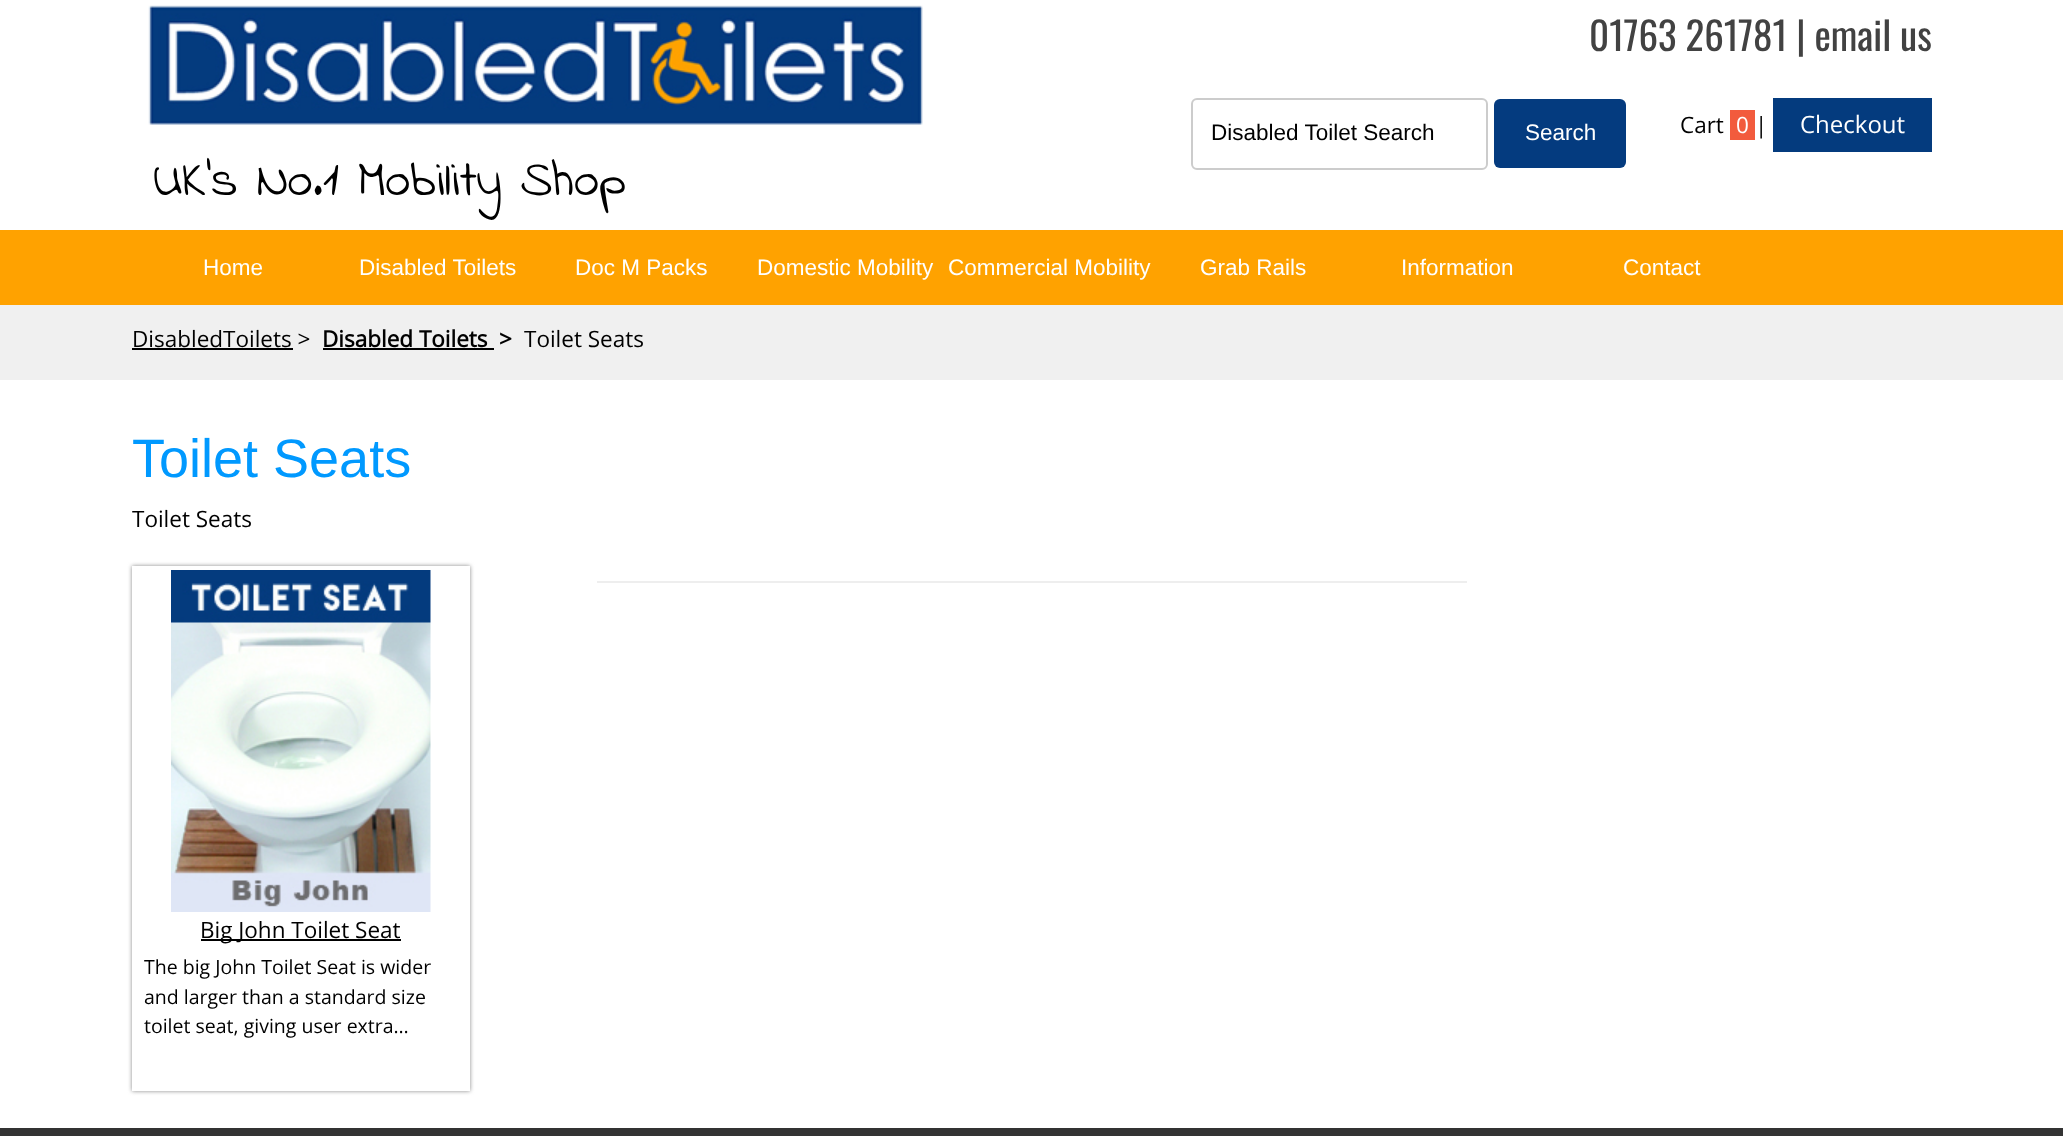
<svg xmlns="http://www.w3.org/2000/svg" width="2063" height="1136">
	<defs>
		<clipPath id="clip1"><path d="M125 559H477V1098H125ZM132 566H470V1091H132Z" clip-rule="evenodd" /></clipPath>
	</defs>
	<rect width="100%" height="100%" fill="#FFFFFF" />
	<text x="1589" y="51" font-family="Oswald" font-size="39" fill="#424242">01763 261781 | email us</text>
	<rect x="1192" y="99" width="295" height="70" rx="5" fill="none" stroke="#CCCCCC" stroke-width="2" />
	<text x="1211" y="140" font-family="Liberation Sans" font-size="22.5" fill="#000000">Disabled Toilet Search</text>
	<rect x="1494" y="99" width="132" height="69" rx="6" fill="#043B7F" />
	<text x="1525" y="140" font-family="Liberation Sans" font-size="22.5" fill="#FFFFFF">Search</text>
	<text x="1680" y="133" font-family="Open Sans" font-size="22.5" fill="#000000">Cart</text>
	<rect x="1730" y="110" width="25" height="30" fill="#F25B3D" />
	<text x="1736" y="133" font-family="Open Sans" font-size="22.5" fill="#FFFFFF">0</text>
	<text x="1755" y="133" font-family="Open Sans" font-size="22.5" fill="#000000">|</text>
	<rect x="1773" y="98" width="159" height="54" fill="#043B7E" />
	<text x="1800" y="133" font-family="Open Sans" font-size="24" fill="#FFFFFF">Checkout</text>
	<image x="148" y="5" width="775" height="120" href="assets/img1.png" />
	<text x="153" y="195" font-family="Indie Flower" font-size="51" fill="#000000">UK's No.1 Mobility Shop</text>
	<rect x="0" y="230" width="2063" height="75" fill="#FFA200" />
	<g font-family="Liberation Sans" font-size="22.5" fill="#FFFFFF">
		<text x="203" y="275">Home</text>
		<text x="359" y="275">Disabled Toilets</text>
		<text x="575" y="275">Doc M Packs</text>
		<text x="757" y="275">Domestic Mobility</text>
		<text x="948" y="275">Commercial Mobility</text>
		<text x="1200" y="275">Grab Rails</text>
		<text x="1401" y="275">Information</text>
		<text x="1623" y="275">Contact</text>
	</g>
	<rect x="0" y="305" width="2063" height="75" fill="#F0F0F0" />
	<text x="132" y="347" font-family="Open Sans" font-size="22.5" fill="#000000">DisabledToilets &gt;</text>
	<rect x="132" y="348" width="161" height="2" fill="#000000" />
	<text x="322" y="347" font-family="Open Sans" font-size="22.5" font-weight="700" fill="#000000">Disabled Toilets</text>
	<rect x="323" y="348" width="171" height="2" fill="#000000" />
	<text x="499" y="347" font-family="Open Sans" font-size="22.5" font-weight="700" fill="#000000">&gt;</text>
	<text x="524" y="347" font-family="Open Sans" font-size="22.5" fill="#000000">Toilet Seats</text>
	<text x="132" y="477" font-family="Liberation Sans" font-size="54" fill="#0099FF">Toilet Seats</text>
	<text x="132" y="527" font-family="Open Sans" font-size="22.5" fill="#000000">Toilet Seats</text>
	<rect x="597" y="581" width="870" height="2" fill="#EEEEEE" />
	<g clip-path="url(#clip1)">
		<rect x="132" y="566" width="338" height="525" fill="#888888" filter="blur(2px)" />
	</g>
	<image x="171" y="570" width="260" height="342" href="assets/img2.png" />
	<rect x="201" y="939" width="200" height="2" fill="#000000" />
	<text x="200" y="938" font-family="Open Sans" font-size="22.5" fill="#000000">Big John Toilet Seat</text>
	<g font-family="Open Sans" font-size="19.5" fill="#000000">
		<text x="144" y="974">The big John Toilet Seat is wider</text>
		<text x="144" y="1004">and larger than a standard size</text>
		<text x="144" y="1033">toilet seat, giving user extra…</text>
	</g>
	<rect x="0" y="1128" width="2063" height="8" fill="#333333" />
</svg>
